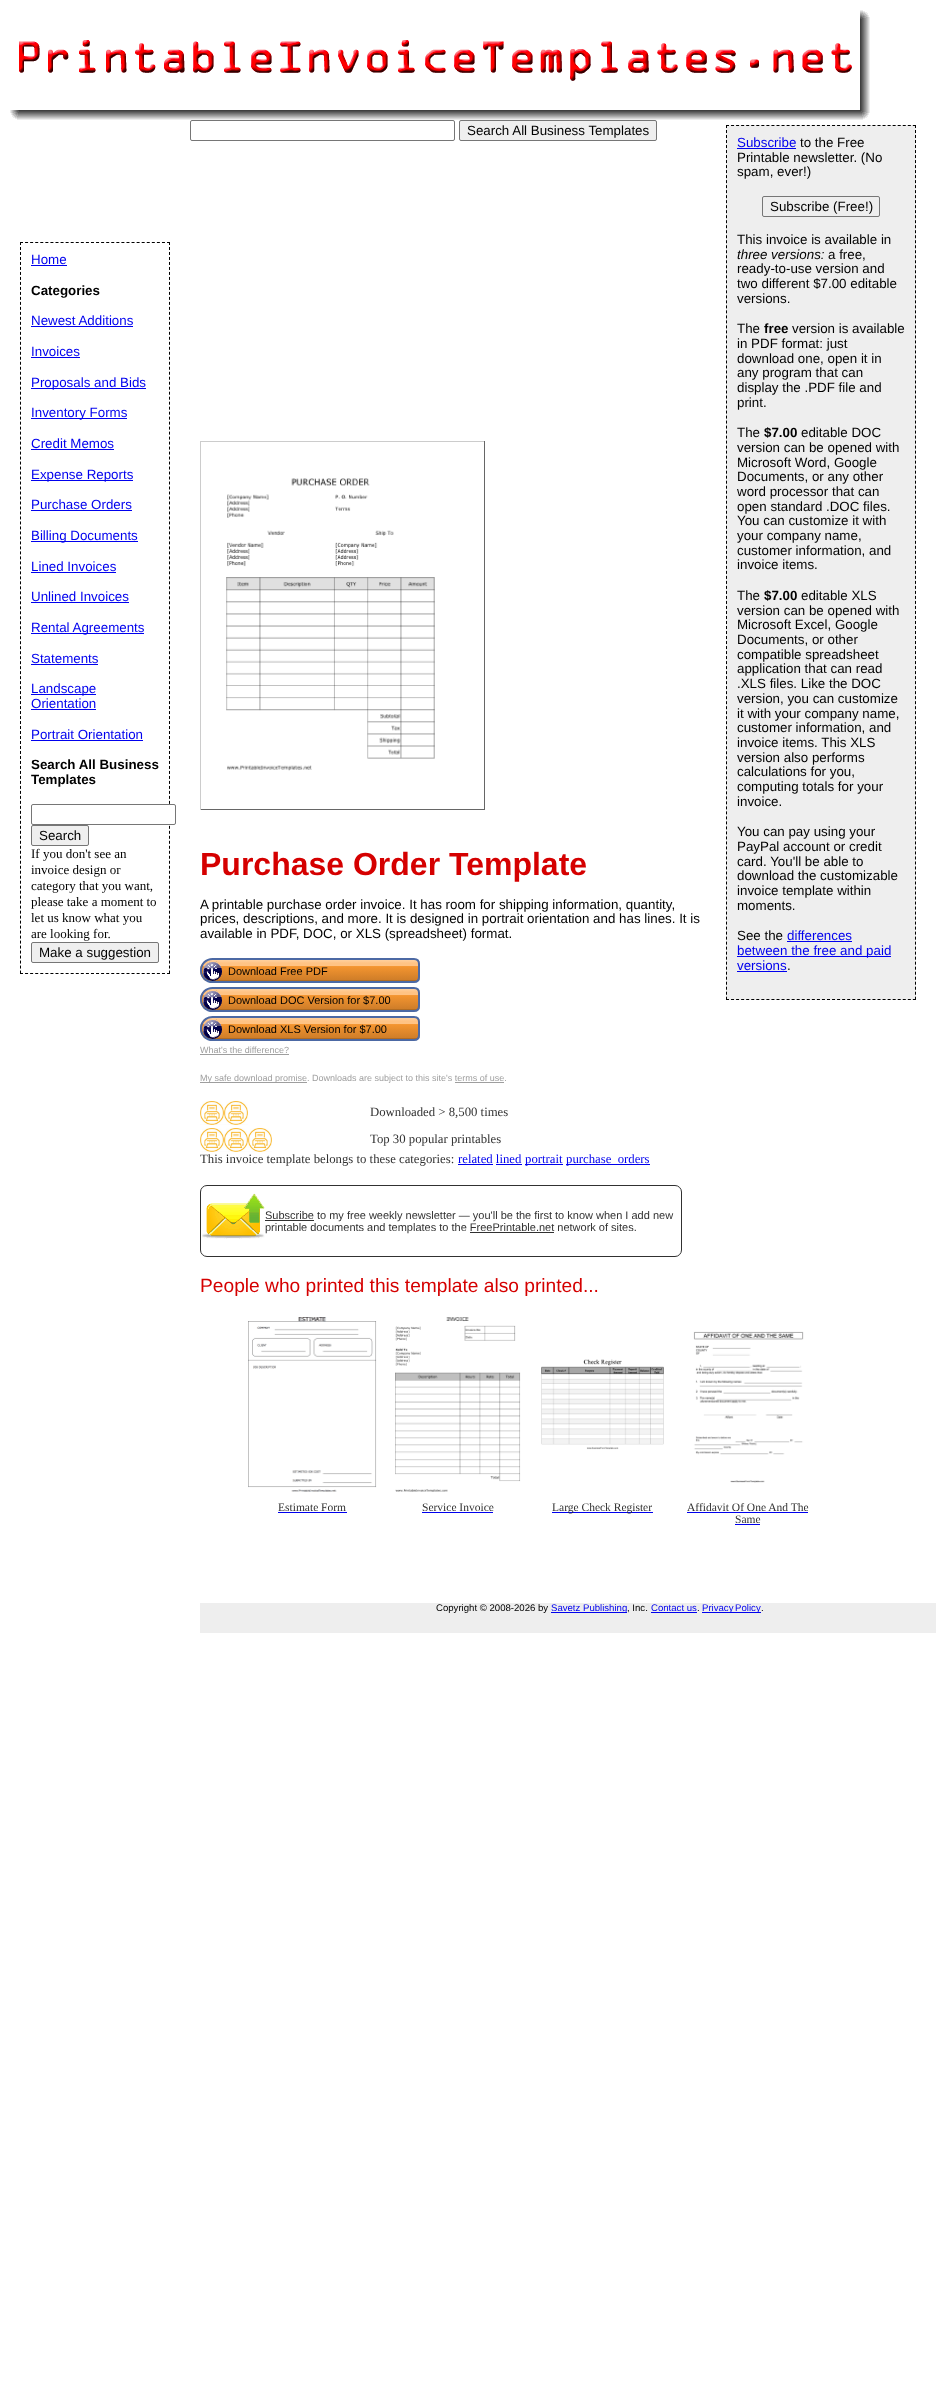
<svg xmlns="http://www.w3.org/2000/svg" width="936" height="2407">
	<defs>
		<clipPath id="clip1"><path d="M212.5 958H414C417.5 958 420 960.5 420 964V977C420 980.5 417.5 983 414 983H212.5C205.5 983 200 977.5 200 970.5C200 963.5 205.5 958 212.5 958Z" /></clipPath>
		<linearGradient id="g1" gradientUnits="userSpaceOnUse" x1="310" y1="960" x2="310" y2="981"><stop offset="0" stop-color="#FFD09E" /><stop offset="0.15" stop-color="#FFC384" /><stop offset="0.3" stop-color="#FFC384" /><stop offset="0.31" stop-color="#F49530" /><stop offset="0.94" stop-color="#D07E29" /><stop offset="0.95" stop-color="#BF7425" /><stop offset="1" stop-color="#A46420" /></linearGradient>
		<clipPath id="clip2"><path d="M212.5 987H414C417.5 987 420 989.5 420 993V1006C420 1009.5 417.5 1012 414 1012H212.5C205.5 1012 200 1006.5 200 999.5C200 992.5 205.5 987 212.5 987Z" /></clipPath>
		<linearGradient id="g2" gradientUnits="userSpaceOnUse" x1="310" y1="989" x2="310" y2="1010"><stop offset="0" stop-color="#FFD09E" /><stop offset="0.15" stop-color="#FFC384" /><stop offset="0.3" stop-color="#FFC384" /><stop offset="0.31" stop-color="#F49530" /><stop offset="0.94" stop-color="#D07E29" /><stop offset="0.95" stop-color="#BF7425" /><stop offset="1" stop-color="#A46420" /></linearGradient>
		<clipPath id="clip3"><path d="M212.5 1016H414C417.5 1016 420 1018.5 420 1022V1035C420 1038.5 417.5 1041 414 1041H212.5C205.5 1041 200 1035.5 200 1028.5C200 1021.5 205.5 1016 212.5 1016Z" /></clipPath>
		<linearGradient id="g3" gradientUnits="userSpaceOnUse" x1="310" y1="1018" x2="310" y2="1039"><stop offset="0" stop-color="#FFD09E" /><stop offset="0.15" stop-color="#FFC384" /><stop offset="0.3" stop-color="#FFC384" /><stop offset="0.31" stop-color="#F49530" /><stop offset="0.94" stop-color="#D07E29" /><stop offset="0.95" stop-color="#BF7425" /><stop offset="1" stop-color="#A46420" /></linearGradient>
	</defs>
	<rect width="100%" height="100%" fill="#FFFFFF" />
	<image x="10" y="10" width="860" height="110" href="assets/img1.png" />
	<rect x="190.5" y="120.5" width="264" height="20" rx="1.5" fill="none" stroke="#767676" />
	<rect x="459.5" y="120.5" width="197" height="20" rx="1.5" fill="#EFEFEF" stroke="#767676" />
	<text x="467" y="135" font-family="Liberation Sans" font-size="13.35" fill="#000000">Search All Business Templates</text>
	<path d="M20 242.5H170" fill="none" stroke="#000000" stroke-dasharray="3 2.07" />
	<path d="M169.5 242V974" fill="none" stroke="#000000" stroke-dasharray="3 1.99" />
	<path d="M20 973.5H170" fill="none" stroke="#000000" stroke-dasharray="3 2.07" />
	<path d="M20.5 242V974" fill="none" stroke="#000000" stroke-dasharray="3 1.99" />
	<text x="31" y="264" font-family="Liberation Sans" font-size="13.35" fill="#0000EE">Home</text>
	<rect x="31" y="265" width="36" height="1" fill="#0000EE" />
	<text x="31" y="295" font-family="Liberation Sans" font-size="13.35" font-weight="700" fill="#000000">Categories</text>
	<text x="31" y="325" font-family="Liberation Sans" font-size="13.35" fill="#0000EE">Newest Additions</text>
	<rect x="31" y="326" width="102" height="1" fill="#0000EE" />
	<text x="31" y="356" font-family="Liberation Sans" font-size="13.35" fill="#0000EE">Invoices</text>
	<rect x="31" y="357" width="49" height="1" fill="#0000EE" />
	<rect x="31" y="388" width="115" height="1" fill="#0000EE" />
	<text x="31" y="387" font-family="Liberation Sans" font-size="13.35" fill="#0000EE">Proposals and Bids</text>
	<rect x="31" y="418" width="96" height="1" fill="#0000EE" />
	<g font-family="Liberation Sans" font-size="13.35" fill="#0000EE">
		<text x="31" y="417">Inventory Forms</text>
		<text x="31" y="448">Credit Memos</text>
	</g>
	<rect x="31" y="449" width="83" height="1" fill="#0000EE" />
	<rect x="31" y="480" width="102" height="1" fill="#0000EE" />
	<g font-family="Liberation Sans" font-size="13.35" fill="#0000EE">
		<text x="31" y="479">Expense Reports</text>
		<text x="31" y="509">Purchase Orders</text>
	</g>
	<rect x="31" y="510" width="101" height="1" fill="#0000EE" />
	<rect x="31" y="541" width="107" height="1" fill="#0000EE" />
	<g font-family="Liberation Sans" font-size="13.35" fill="#0000EE">
		<text x="31" y="540">Billing Documents</text>
		<text x="31" y="571">Lined Invoices</text>
	</g>
	<rect x="31" y="572" width="85" height="1" fill="#0000EE" />
	<text x="31" y="601" font-family="Liberation Sans" font-size="13.35" fill="#0000EE">Unlined Invoices</text>
	<rect x="31" y="602" width="98" height="1" fill="#0000EE" />
	<rect x="31" y="633" width="113" height="1" fill="#0000EE" />
	<g font-family="Liberation Sans" font-size="13.35" fill="#0000EE">
		<text x="31" y="632">Rental Agreements</text>
		<text x="31" y="663">Statements</text>
	</g>
	<rect x="31" y="664" width="67" height="1" fill="#0000EE" />
	<rect x="31" y="694" width="65" height="1" fill="#0000EE" />
	<g font-family="Liberation Sans" font-size="13.35" fill="#0000EE">
		<text x="31" y="693">Landscape</text>
		<text x="31" y="708">Orientation</text>
	</g>
	<rect x="31" y="709" width="65" height="1" fill="#0000EE" />
	<text x="31" y="739" font-family="Liberation Sans" font-size="13.35" fill="#0000EE">Portrait Orientation</text>
	<rect x="31" y="740" width="112" height="1" fill="#0000EE" />
	<g font-family="Liberation Sans" font-size="13.35" font-weight="700" fill="#000000">
		<text x="31" y="769">Search All Business</text>
		<text x="31" y="784">Templates</text>
	</g>
	<rect x="31.5" y="804.5" width="144" height="20" rx="1.5" fill="#FFFFFF" stroke="#767676" />
	<rect x="31.5" y="825.5" width="57" height="20" rx="1.5" fill="#EFEFEF" stroke="#767676" />
	<text x="39" y="840" font-family="Liberation Sans" font-size="13.35" fill="#000000">Search</text>
	<g font-family="Liberation Serif" font-size="13" fill="#000000">
		<text x="31" y="858">If you don't see an</text>
		<text x="31" y="874">invoice design or</text>
		<text x="31" y="890">category that you want,</text>
		<text x="31" y="906">please take a moment to</text>
		<text x="31" y="922">let us know what you</text>
		<text x="31" y="938">are looking for.</text>
	</g>
	<rect x="31.5" y="942.5" width="127" height="20" rx="1.5" fill="#EFEFEF" stroke="#767676" />
	<text x="39" y="957" font-family="Liberation Sans" font-size="13.35" fill="#000000">Make a suggestion</text>
	<rect x="726" y="125" width="190" height="875" fill="#EEEEEE" />
	<path d="M726 125.5H916" fill="none" stroke="#000000" stroke-dasharray="3 2.05" />
	<path d="M915.5 125V1000" fill="none" stroke="#000000" stroke-dasharray="3 2.01" />
	<path d="M726 999.5H916" fill="none" stroke="#000000" stroke-dasharray="3 2.05" />
	<path d="M726.5 125V1000" fill="none" stroke="#000000" stroke-dasharray="3 2.01" />
	<text x="737" y="147" font-family="Liberation Sans" font-size="13.35" fill="#0000EE">Subscribe</text>
	<rect x="737" y="148" width="59" height="1" fill="#0000EE" />
	<g font-family="Liberation Sans" font-size="13.35" fill="#000000">
		<text x="800" y="147">to the Free</text>
		<text x="737" y="162">Printable newsletter. (No</text>
		<text x="737" y="176">spam, ever!)</text>
	</g>
	<rect x="762.5" y="196.5" width="117" height="20" rx="1.5" fill="none" stroke="#767676" />
	<g font-family="Liberation Sans" font-size="13.35" fill="#000000">
		<text x="770" y="211">Subscribe (Free!)</text>
		<text x="737" y="244">This invoice is available in</text>
	</g>
	<text x="737" y="259" font-family="Liberation Sans" font-size="13.35" font-style="italic" fill="#000000">three versions:</text>
	<g font-family="Liberation Sans" font-size="13.35" fill="#000000">
		<text x="828" y="259">a free,</text>
		<text x="737" y="273">ready-to-use version and</text>
		<text x="737" y="288">two different $7.00 editable</text>
		<text x="737" y="303">versions.</text>
		<text x="737" y="333">The</text>
	</g>
	<text x="764" y="333" font-family="Liberation Sans" font-size="13.35" font-weight="700" fill="#000000">free</text>
	<g font-family="Liberation Sans" font-size="13.35" fill="#000000">
		<text x="792" y="333">version is available</text>
		<text x="737" y="348">in PDF format: just</text>
		<text x="737" y="363">download one, open it in</text>
		<text x="737" y="377">any program that can</text>
		<text x="737" y="392">display the .PDF file and</text>
		<text x="737" y="407">print.</text>
		<text x="737" y="437">The</text>
	</g>
	<text x="764" y="437" font-family="Liberation Sans" font-size="13.35" font-weight="700" fill="#000000">$7.00</text>
	<g font-family="Liberation Sans" font-size="13.35" fill="#000000">
		<text x="801" y="437">editable DOC</text>
		<text x="737" y="452">version can be opened with</text>
		<text x="737" y="467">Microsoft Word, Google</text>
		<text x="737" y="481">Documents, or any other</text>
		<text x="737" y="496">word processor that can</text>
		<text x="737" y="511">open standard .DOC files.</text>
		<text x="737" y="525">You can customize it with</text>
		<text x="737" y="540">your company name,</text>
		<text x="737" y="555">customer information, and</text>
		<text x="737" y="569">invoice items.</text>
		<text x="737" y="600">The</text>
	</g>
	<text x="764" y="600" font-family="Liberation Sans" font-size="13.35" font-weight="700" fill="#000000">$7.00</text>
	<g font-family="Liberation Sans" font-size="13.35" fill="#000000">
		<text x="801" y="600">editable XLS</text>
		<text x="737" y="615">version can be opened with</text>
		<text x="737" y="629">Microsoft Excel, Google</text>
		<text x="737" y="644">Documents, or other</text>
		<text x="737" y="659">compatible spreadsheet</text>
		<text x="737" y="673">application that can read</text>
		<text x="737" y="688">.XLS files. Like the DOC</text>
		<text x="737" y="703">version, you can customize</text>
		<text x="737" y="718">it with your company name,</text>
		<text x="737" y="732">customer information, and</text>
		<text x="737" y="747">invoice items. This XLS</text>
		<text x="737" y="762">version also performs</text>
		<text x="737" y="776">calculations for you,</text>
		<text x="737" y="791">computing totals for your</text>
		<text x="737" y="806">invoice.</text>
		<text x="737" y="836">You can pay using your</text>
		<text x="737" y="851">PayPal account or credit</text>
		<text x="737" y="866">card. You'll be able to</text>
		<text x="737" y="880">download the customizable</text>
		<text x="737" y="895">invoice template within</text>
		<text x="737" y="910">moments.</text>
		<text x="737" y="940">See the</text>
	</g>
	<text x="787" y="940" font-family="Liberation Sans" font-size="13.35" fill="#0000EE">differences</text>
	<rect x="787" y="941" width="65" height="1" fill="#0000EE" />
	<rect x="737" y="956" width="154" height="1" fill="#0000EE" />
	<g font-family="Liberation Sans" font-size="13.35" fill="#0000EE">
		<text x="737" y="955">between the free and paid</text>
		<text x="737" y="970">versions</text>
	</g>
	<rect x="737" y="971" width="50" height="1" fill="#0000EE" />
	<text x="787" y="970" font-family="Liberation Sans" font-size="13.35" fill="#000000">.</text>
	<rect x="200" y="441" width="285" height="1" fill="#CCCCCC" />
	<rect x="484" y="441" width="1" height="369" fill="#666666" />
	<rect x="200" y="809" width="285" height="1" fill="#666666" />
	<rect x="200" y="441" width="1" height="369" fill="#CCCCCC" />
	<image x="226" y="478" width="209" height="293" href="assets/img2.png" />
	<text x="200" y="875" font-family="Liberation Sans" font-size="32" font-weight="700" fill="#D50000">Purchase Order Template</text>
	<g font-family="Liberation Sans" font-size="13.35" fill="#000000">
		<text x="200" y="909">A printable purchase order invoice. It has room for shipping information, quantity,</text>
		<text x="200" y="923">prices, descriptions, and more. It is designed in portrait orientation and has lines. It is</text>
		<text x="200" y="938">available in PDF, DOC, or XLS (spreadsheet) format.</text>
	</g>
	<g clip-path="url(#clip1)">
		<rect x="200" y="960" width="220" height="21" fill="url(#g1)" />
	</g>
	<path d="M212.5 959H414C417 959 419 961 419 964V977C419 980 417 982 414 982H212.5C206 982 201 977 201 970.5C201 964 206 959 212.5 959Z" fill="none" stroke="#4C69A4" stroke-width="2" />
	<image x="203" y="961" width="19" height="20" href="assets/img3.png" />
	<text x="228" y="975" font-family="Liberation Sans" font-size="11" fill="#000000">Download Free PDF</text>
	<g clip-path="url(#clip2)">
		<rect x="200" y="989" width="220" height="21" fill="url(#g2)" />
	</g>
	<path d="M212.5 988H414C417 988 419 990 419 993V1006C419 1009 417 1011 414 1011H212.5C206 1011 201 1006 201 999.5C201 993 206 988 212.5 988Z" fill="none" stroke="#4C69A4" stroke-width="2" />
	<image x="203" y="990" width="19" height="20" href="assets/img3.png" />
	<text x="228" y="1004" font-family="Liberation Sans" font-size="11" fill="#000000">Download DOC Version for $7.00</text>
	<g clip-path="url(#clip3)">
		<rect x="200" y="1018" width="220" height="21" fill="url(#g3)" />
	</g>
	<path d="M212.5 1017H414C417 1017 419 1019 419 1022V1035C419 1038 417 1040 414 1040H212.5C206 1040 201 1035 201 1028.5C201 1022 206 1017 212.5 1017Z" fill="none" stroke="#4C69A4" stroke-width="2" />
	<image x="203" y="1019" width="19" height="20" href="assets/img3.png" />
	<text x="228" y="1033" font-family="Liberation Sans" font-size="11" fill="#000000">Download XLS Version for $7.00</text>
	<text x="200" y="1053" font-family="Liberation Sans" font-size="9" fill="#9E9E9E">What's the difference?</text>
	<rect x="200" y="1054" width="89" height="1" fill="#9E9E9E" />
	<rect x="200" y="1082" width="107" height="1" fill="#9E9E9E" />
	<text x="200" y="1081" font-family="Liberation Sans" font-size="9" fill="#9E9E9E">My safe download promise. Downloads are subject to this site's terms of use.</text>
	<rect x="455" y="1082" width="49" height="1" fill="#9E9E9E" />
	<image x="200" y="1101" width="24" height="24" href="assets/img4.png" />
	<image x="224" y="1101" width="24" height="24" href="assets/img4.png" />
	<text x="370" y="1116" font-family="Liberation Serif" font-size="12.75" fill="#313131">Downloaded &gt; 8,500 times</text>
	<image x="200" y="1128" width="24" height="24" href="assets/img4.png" />
	<image x="224" y="1128" width="24" height="24" href="assets/img4.png" />
	<image x="248" y="1128" width="24" height="24" href="assets/img4.png" />
	<g font-family="Liberation Serif" font-size="12.75" fill="#313131">
		<text x="370" y="1143">Top 30 popular printables</text>
		<text x="200" y="1163">This invoice template belongs to these categories:</text>
	</g>
	<text x="458" y="1163" font-family="Liberation Serif" font-size="12.75" fill="#0000EE">related lined</text>
	<rect x="458" y="1164" width="35" height="1" fill="#0000EE" />
	<rect x="525" y="1164" width="38" height="1" fill="#0000EE" />
	<text x="525" y="1163" font-family="Liberation Serif" font-size="12.75" fill="#0000EE">portrait</text>
	<rect x="566" y="1164" width="84" height="1" fill="#0000EE" />
	<text x="566" y="1163" font-family="Liberation Serif" font-size="12.75" fill="#0000EE">purchase_orders</text>
	<rect x="496" y="1164" width="26" height="1" fill="#0000EE" />
	<rect x="200.5" y="1185.5" width="481" height="71" rx="6.5" fill="none" stroke="#313131" />
	<image x="202" y="1193" width="63" height="46" href="assets/img5.png" />
	<rect x="265" y="1220" width="49" height="1" fill="#313131" />
	<g font-family="Liberation Sans" font-size="11" fill="#313131">
		<text x="265" y="1219">Subscribe to my free weekly newsletter — you'll be the first to know when I add new</text>
		<text x="265" y="1231">printable documents and templates to the FreePrintable.net network of sites.</text>
	</g>
	<rect x="470" y="1232" width="84" height="1" fill="#313131" />
	<text x="200" y="1292" font-family="Liberation Sans" font-size="19.2" fill="#D50000">People who printed this template also printed...</text>
	<image x="248" y="1317" width="129" height="175" href="assets/img6.png" />
	<text x="278" y="1511" font-family="Liberation Serif" font-size="11.5" fill="#313131">Estimate Form</text>
	<rect x="278" y="1512" width="69" height="1" fill="#0000EE" />
	<image x="395" y="1317" width="126" height="175" href="assets/img7.png" />
	<text x="422" y="1511" font-family="Liberation Serif" font-size="11.5" fill="#313131">Service Invoice</text>
	<rect x="422" y="1512" width="71" height="1" fill="#0000EE" />
	<image x="541" y="1359" width="123" height="91" href="assets/img8.png" />
	<rect x="552" y="1512" width="101" height="1" fill="#0000EE" />
	<text x="552" y="1511" font-family="Liberation Serif" font-size="11.5" fill="#313131">Large Check Register</text>
	<image x="693" y="1331" width="111" height="152" href="assets/img9.png" />
	<text x="687" y="1511" font-family="Liberation Serif" font-size="11.5" fill="#313131">Affidavit Of One And The</text>
	<rect x="687" y="1512" width="121" height="1" fill="#0000EE" />
	<text x="735" y="1523" font-family="Liberation Serif" font-size="11.5" fill="#313131">Same</text>
	<rect x="735" y="1524" width="25" height="1" fill="#0000EE" />
	<rect x="200" y="1603" width="736" height="30" fill="#EEEEEE" />
	<text x="436" y="1611" font-family="Liberation Sans" font-size="9.6" fill="#000000">Copyright © 2008-2026 by</text>
	<rect x="551" y="1612" width="76" height="1" fill="#0000EE" />
	<text x="551" y="1611" font-family="Liberation Sans" font-size="9.6" fill="#0000EE">Savetz Publishing</text>
	<text x="627" y="1611" font-family="Liberation Sans" font-size="9.6" fill="#000000">, Inc.</text>
	<text x="651" y="1611" font-family="Liberation Sans" font-size="9.6" fill="#0000EE">Contact us</text>
	<rect x="651" y="1612" width="46" height="1" fill="#0000EE" />
	<text x="697" y="1611" font-family="Liberation Sans" font-size="9.6" fill="#000000">.</text>
	<rect x="702" y="1612" width="59" height="1" fill="#0000EE" />
	<text x="702" y="1611" word-spacing="-1" font-family="Liberation Sans" font-size="9.6" fill="#0000EE">Privacy Policy</text>
	<text x="761" y="1611" font-family="Liberation Sans" font-size="9.6" fill="#000000">.</text>
</svg>
